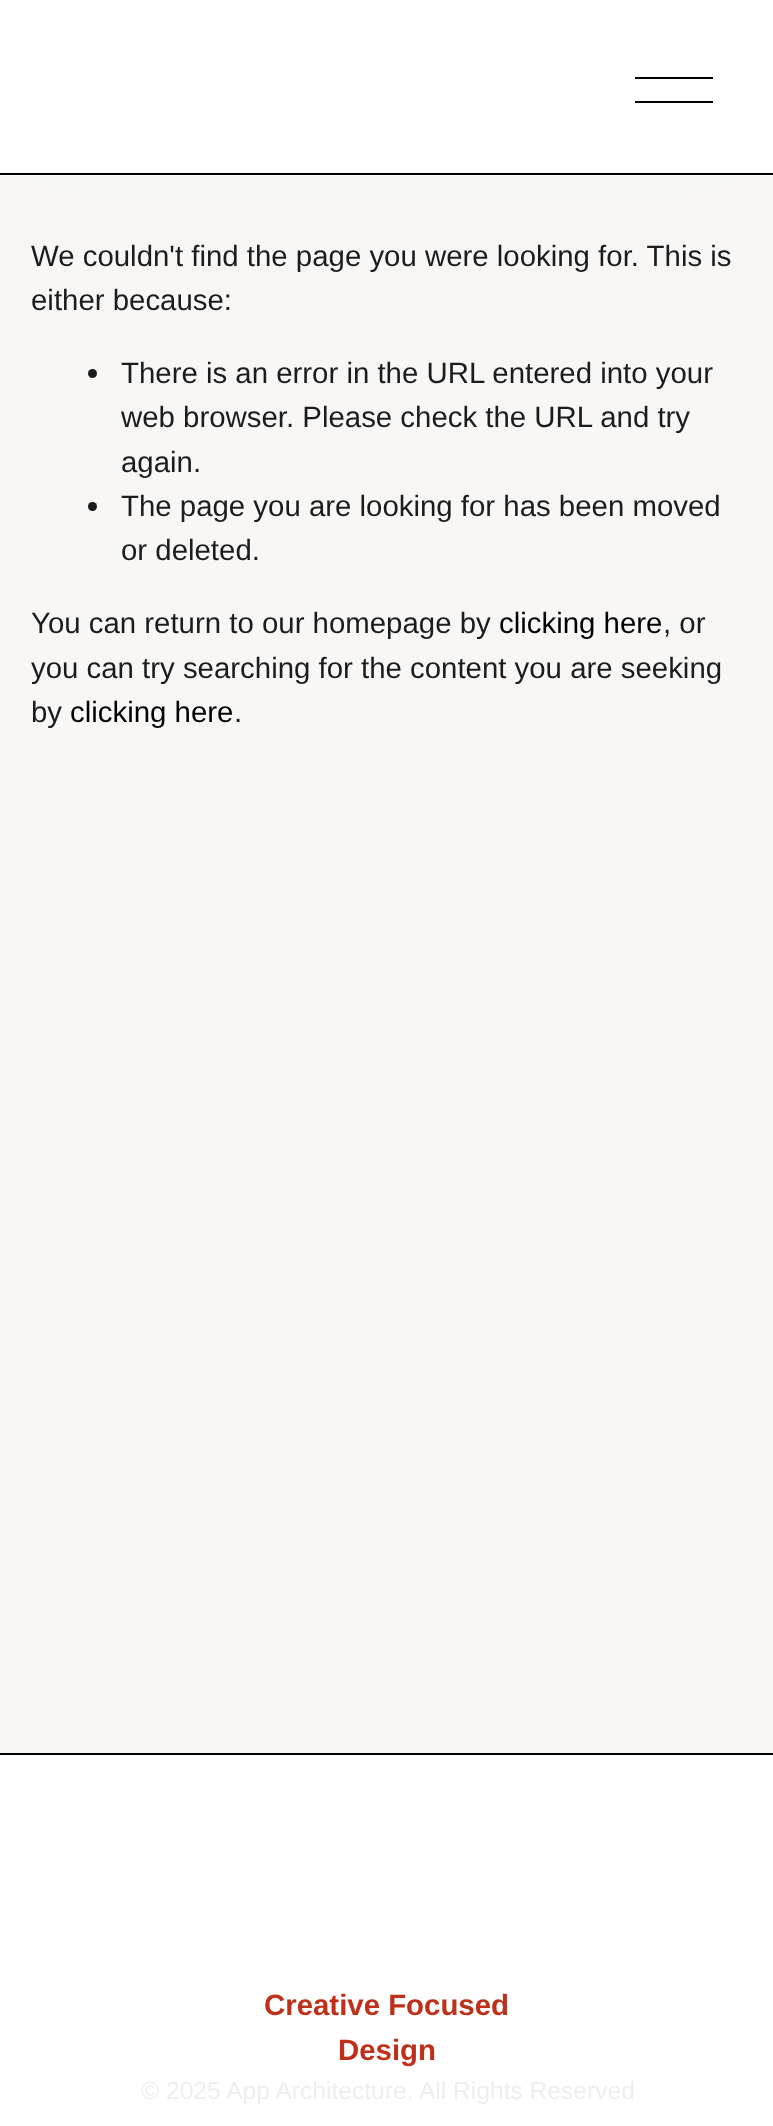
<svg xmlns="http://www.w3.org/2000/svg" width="773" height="2126">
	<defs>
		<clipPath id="clip1"><path d="M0 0H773V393H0ZM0 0H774V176H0Z" clip-rule="evenodd" /></clipPath>
	</defs>
	<rect width="100%" height="100%" fill="#F8F7F5" />
	<rect x="0" y="0" width="773" height="176" fill="#FFFFFF" />
	<circle cx="92.5" cy="373.5" r="4.5" fill="#1C1C1C" />
	<g clip-path="url(#clip1)">
		<rect x="-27" y="0" width="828" height="230" fill="#FAFAFA" fill-opacity="0.15" filter="blur(54px)" />
	</g>
	<rect x="635" y="77" width="78" height="2" fill="#000000" />
	<rect x="635" y="101" width="78" height="2" fill="#000000" />
	<rect x="0" y="173" width="773" height="2" fill="#000000" />
	<g font-family="Liberation Sans" font-size="29.4" fill="#1C1C1C">
		<text x="31" y="266">We couldn't find the page you were looking for. This is</text>
		<text x="31" y="310">either because:</text>
		<text x="121" y="383">There is an error in the URL entered into your</text>
		<text x="121" y="427">web browser. Please check the URL and try</text>
		<text x="121" y="472">again.</text>
	</g>
	<circle cx="92.5" cy="506.5" r="4.5" fill="#1C1C1C" />
	<g font-family="Liberation Sans" font-size="29.4" fill="#1C1C1C">
		<text x="121" y="516">The page you are looking for has been moved</text>
		<text x="121" y="560">or deleted.</text>
		<text x="31" y="633">You can return to our homepage by</text>
	</g>
	<text x="499" y="633" font-family="Liberation Sans" font-size="29.4" fill="#000000">clicking here</text>
	<g font-family="Liberation Sans" font-size="29.4" fill="#1C1C1C">
		<text x="663" y="633">, or</text>
		<text x="31" y="678">you can try searching for the content you are seeking</text>
		<text x="31" y="722">by</text>
	</g>
	<text x="70" y="722" font-family="Liberation Sans" font-size="29.4" fill="#000000">clicking here</text>
	<text x="234" y="722" font-family="Liberation Sans" font-size="29.4" fill="#1C1C1C">.</text>
	<rect x="0" y="1753" width="773" height="2" fill="#000000" />
	<rect x="0" y="1755" width="773" height="371" fill="#FFFFFF" />
	<g font-family="Liberation Sans" font-size="29.4" font-weight="700" fill="#BF301A">
		<text x="264" y="2015">Creative Focused</text>
		<text x="338" y="2060">Design</text>
	</g>
	<text x="141" y="2099" font-family="Liberation Sans" font-size="24.6" fill="#EFEEEE">© 2025 App Architecture. All Rights Reserved</text>
</svg>
